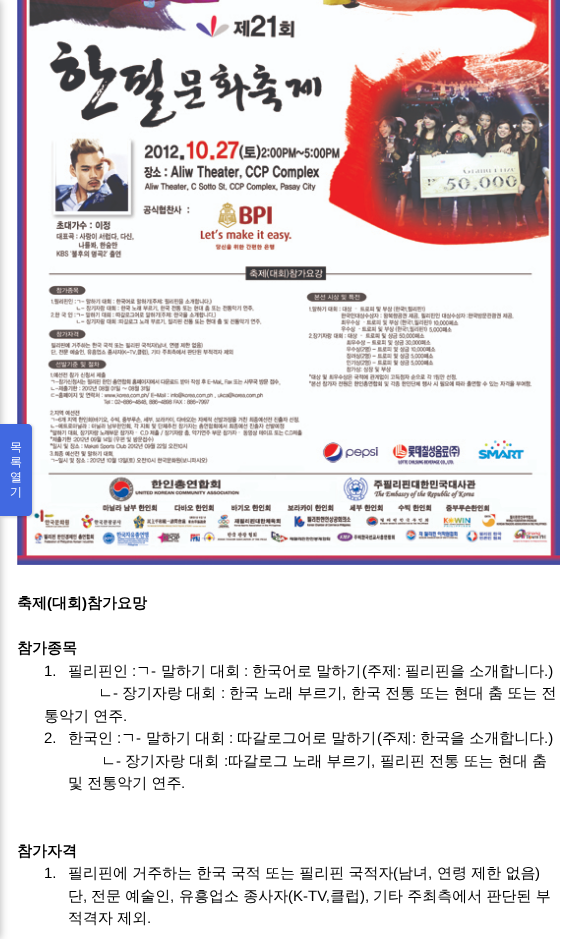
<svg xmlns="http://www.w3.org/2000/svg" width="577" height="939">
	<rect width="100%" height="100%" fill="#FFFFFF" />
	<rect x="-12" y="0" width="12" height="939" fill="#000000" fill-opacity="0.3" filter="blur(4px)" />
	<image x="17" y="0" width="543" height="565" href="assets/img1.png" />
	<rect x="1" y="425" width="32" height="92" rx="4" fill="#000000" fill-opacity="0.2" filter="blur(1.5px)" />
	<path d="M0 424H28C30 424 32 426 32 428V512C32 514 30 516 28 516H0Z" fill="#4169E1" />
	<g font-family="WenQuanYi Zen Hei" font-size="12" font-weight="500" fill="#FFFFFF">
		<text x="10" y="451">목</text>
		<text x="10" y="466">록</text>
		<text x="10" y="481">열</text>
		<text x="10" y="496">기</text>
	</g>
	<text x="17" y="608" font-family="WenQuanYi Zen Hei" font-size="15" font-weight="700" fill="#000000">축제</text>
	<text x="47" y="608" font-family="Liberation Sans" font-size="15" font-weight="700" fill="#000000">(</text>
	<text x="52" y="608" font-family="WenQuanYi Zen Hei" font-size="15" font-weight="700" fill="#000000">대회</text>
	<text x="82" y="608" font-family="Liberation Sans" font-size="15" font-weight="700" fill="#000000">)</text>
	<g font-family="WenQuanYi Zen Hei" font-size="15" font-weight="700" fill="#000000">
		<text x="87" y="608">참가요망</text>
		<text x="17" y="653">참가종목</text>
	</g>
	<text x="44" y="676" font-family="Liberation Sans" font-size="15" fill="#000000">1.</text>
	<text x="68" y="676" font-family="WenQuanYi Zen Hei" font-size="15" font-weight="500" fill="#000000">필리핀인</text>
	<text x="132" y="676" font-family="Liberation Sans" font-size="15" fill="#000000">:</text>
	<text x="136" y="676" font-family="WenQuanYi Zen Hei" font-size="15" font-weight="500" fill="#000000">ㄱ</text>
	<text x="151" y="676" font-family="Liberation Sans" font-size="15" fill="#000000">-</text>
	<text x="161" y="676" word-spacing="-0.25" font-family="WenQuanYi Zen Hei" font-size="15" font-weight="500" fill="#000000">말하기 대회</text>
	<text x="244" y="676" font-family="Liberation Sans" font-size="15" fill="#000000">:</text>
	<text x="252" y="676" word-spacing="-0.25" font-family="WenQuanYi Zen Hei" font-size="15" font-weight="500" fill="#000000">한국어로 말하기</text>
	<text x="362" y="676" font-family="Liberation Sans" font-size="15" fill="#000000">(</text>
	<text x="367" y="676" font-family="WenQuanYi Zen Hei" font-size="15" font-weight="500" fill="#000000">주제</text>
	<text x="397" y="676" font-family="Liberation Sans" font-size="15" fill="#000000">:</text>
	<text x="405" y="676" word-spacing="-0.25" font-family="WenQuanYi Zen Hei" font-size="15" font-weight="500" fill="#000000">필리핀을 소개합니다</text>
	<text x="544" y="676" font-family="Liberation Sans" font-size="15" fill="#000000">.)</text>
	<text x="98" y="698" font-family="WenQuanYi Zen Hei" font-size="15" font-weight="500" fill="#000000">ㄴ</text>
	<text x="113" y="698" font-family="Liberation Sans" font-size="15" fill="#000000">-</text>
	<text x="122" y="698" word-spacing="-0.25" font-family="WenQuanYi Zen Hei" font-size="15" font-weight="500" fill="#000000">장기자랑 대회</text>
	<text x="221" y="698" font-family="Liberation Sans" font-size="15" fill="#000000">:</text>
	<g font-family="WenQuanYi Zen Hei" font-size="15" font-weight="500" fill="#000000">
		<text x="229" y="698" word-spacing="-0.25">한국 노래 부르기</text>
		<text x="351" y="698" word-spacing="-0.25">한국 전통 또는 현대 춤 또는 전</text>
	</g>
	<text x="342" y="698" font-family="Liberation Sans" font-size="15" fill="#000000">,</text>
	<text x="44" y="721" word-spacing="-0.25" font-family="WenQuanYi Zen Hei" font-size="15" font-weight="500" fill="#000000">통악기 연주</text>
	<g font-family="Liberation Sans" font-size="15" fill="#000000">
		<text x="123" y="721">.</text>
		<text x="44" y="743">2.</text>
	</g>
	<text x="68" y="743" font-family="WenQuanYi Zen Hei" font-size="15" font-weight="500" fill="#000000">한국인</text>
	<text x="117" y="743" font-family="Liberation Sans" font-size="15" fill="#000000">:</text>
	<text x="121" y="743" font-family="WenQuanYi Zen Hei" font-size="15" font-weight="500" fill="#000000">ㄱ</text>
	<text x="136" y="743" font-family="Liberation Sans" font-size="15" fill="#000000">-</text>
	<text x="146" y="743" word-spacing="-0.25" font-family="WenQuanYi Zen Hei" font-size="15" font-weight="500" fill="#000000">말하기 대회</text>
	<text x="229" y="743" font-family="Liberation Sans" font-size="15" fill="#000000">:</text>
	<text x="237" y="743" word-spacing="-0.25" font-family="WenQuanYi Zen Hei" font-size="15" font-weight="500" fill="#000000">따갈로그어로 말하기</text>
	<text x="377" y="743" font-family="Liberation Sans" font-size="15" fill="#000000">(</text>
	<text x="382" y="743" font-family="WenQuanYi Zen Hei" font-size="15" font-weight="500" fill="#000000">주제</text>
	<text x="412" y="743" font-family="Liberation Sans" font-size="15" fill="#000000">:</text>
	<text x="420" y="743" word-spacing="-0.25" font-family="WenQuanYi Zen Hei" font-size="15" font-weight="500" fill="#000000">한국을 소개합니다</text>
	<text x="544" y="743" font-family="Liberation Sans" font-size="15" fill="#000000">.)</text>
	<text x="101" y="766" font-family="WenQuanYi Zen Hei" font-size="15" font-weight="500" fill="#000000">ㄴ</text>
	<text x="116" y="766" font-family="Liberation Sans" font-size="15" fill="#000000">-</text>
	<text x="125" y="766" word-spacing="-0.25" font-family="WenQuanYi Zen Hei" font-size="15" font-weight="500" fill="#000000">장기자랑 대회</text>
	<text x="224" y="766" font-family="Liberation Sans" font-size="15" fill="#000000">:</text>
	<g font-family="WenQuanYi Zen Hei" font-size="15" font-weight="500" fill="#000000">
		<text x="228" y="766" word-spacing="-0.25">따갈로그 노래 부르기</text>
		<text x="380" y="766" word-spacing="-0.25">필리핀 전통 또는 현대 춤</text>
	</g>
	<text x="371" y="766" font-family="Liberation Sans" font-size="15" fill="#000000">,</text>
	<text x="68" y="788" word-spacing="-0.25" font-family="WenQuanYi Zen Hei" font-size="15" font-weight="500" fill="#000000">및 전통악기 연주</text>
	<text x="181" y="788" font-family="Liberation Sans" font-size="15" fill="#000000">.</text>
	<text x="17" y="856" font-family="WenQuanYi Zen Hei" font-size="15" font-weight="700" fill="#000000">참가자격</text>
	<text x="44" y="878" font-family="Liberation Sans" font-size="15" fill="#000000">1.</text>
	<text x="68" y="878" word-spacing="-0.25" font-family="WenQuanYi Zen Hei" font-size="15" font-weight="500" fill="#000000">필리핀에 거주하는 한국 국적 또는 필리핀 국적자</text>
	<text x="393" y="878" font-family="Liberation Sans" font-size="15" fill="#000000">(</text>
	<text x="398" y="878" font-family="WenQuanYi Zen Hei" font-size="15" font-weight="500" fill="#000000">남녀</text>
	<text x="428" y="878" font-family="Liberation Sans" font-size="15" fill="#000000">,</text>
	<text x="437" y="878" word-spacing="-0.25" font-family="WenQuanYi Zen Hei" font-size="15" font-weight="500" fill="#000000">연령 제한 없음</text>
	<text x="535" y="878" font-family="Liberation Sans" font-size="15" fill="#000000">)</text>
	<text x="68" y="901" font-family="WenQuanYi Zen Hei" font-size="15" font-weight="500" fill="#000000">단</text>
	<text x="83" y="901" font-family="Liberation Sans" font-size="15" fill="#000000">,</text>
	<text x="91" y="901" word-spacing="-0.25" font-family="WenQuanYi Zen Hei" font-size="15" font-weight="500" fill="#000000">전문 예술인</text>
	<text x="170" y="901" font-family="Liberation Sans" font-size="15" fill="#000000">,</text>
	<text x="179" y="901" word-spacing="-0.25" font-family="WenQuanYi Zen Hei" font-size="15" font-weight="500" fill="#000000">유흥업소 종사자</text>
	<text x="288" y="901" font-family="Liberation Sans" font-size="15" fill="#000000">(K-TV,</text>
	<text x="330" y="901" font-family="WenQuanYi Zen Hei" font-size="15" font-weight="500" fill="#000000">클럽</text>
	<text x="360" y="901" font-family="Liberation Sans" font-size="15" fill="#000000">),</text>
	<g font-family="WenQuanYi Zen Hei" font-size="15" font-weight="500" fill="#000000">
		<text x="373" y="901" word-spacing="-0.25">기타 주최측에서 판단된 부</text>
		<text x="68" y="923" word-spacing="-0.25">적격자 제외</text>
	</g>
	<text x="147" y="923" font-family="Liberation Sans" font-size="15" fill="#000000">.</text>
</svg>
